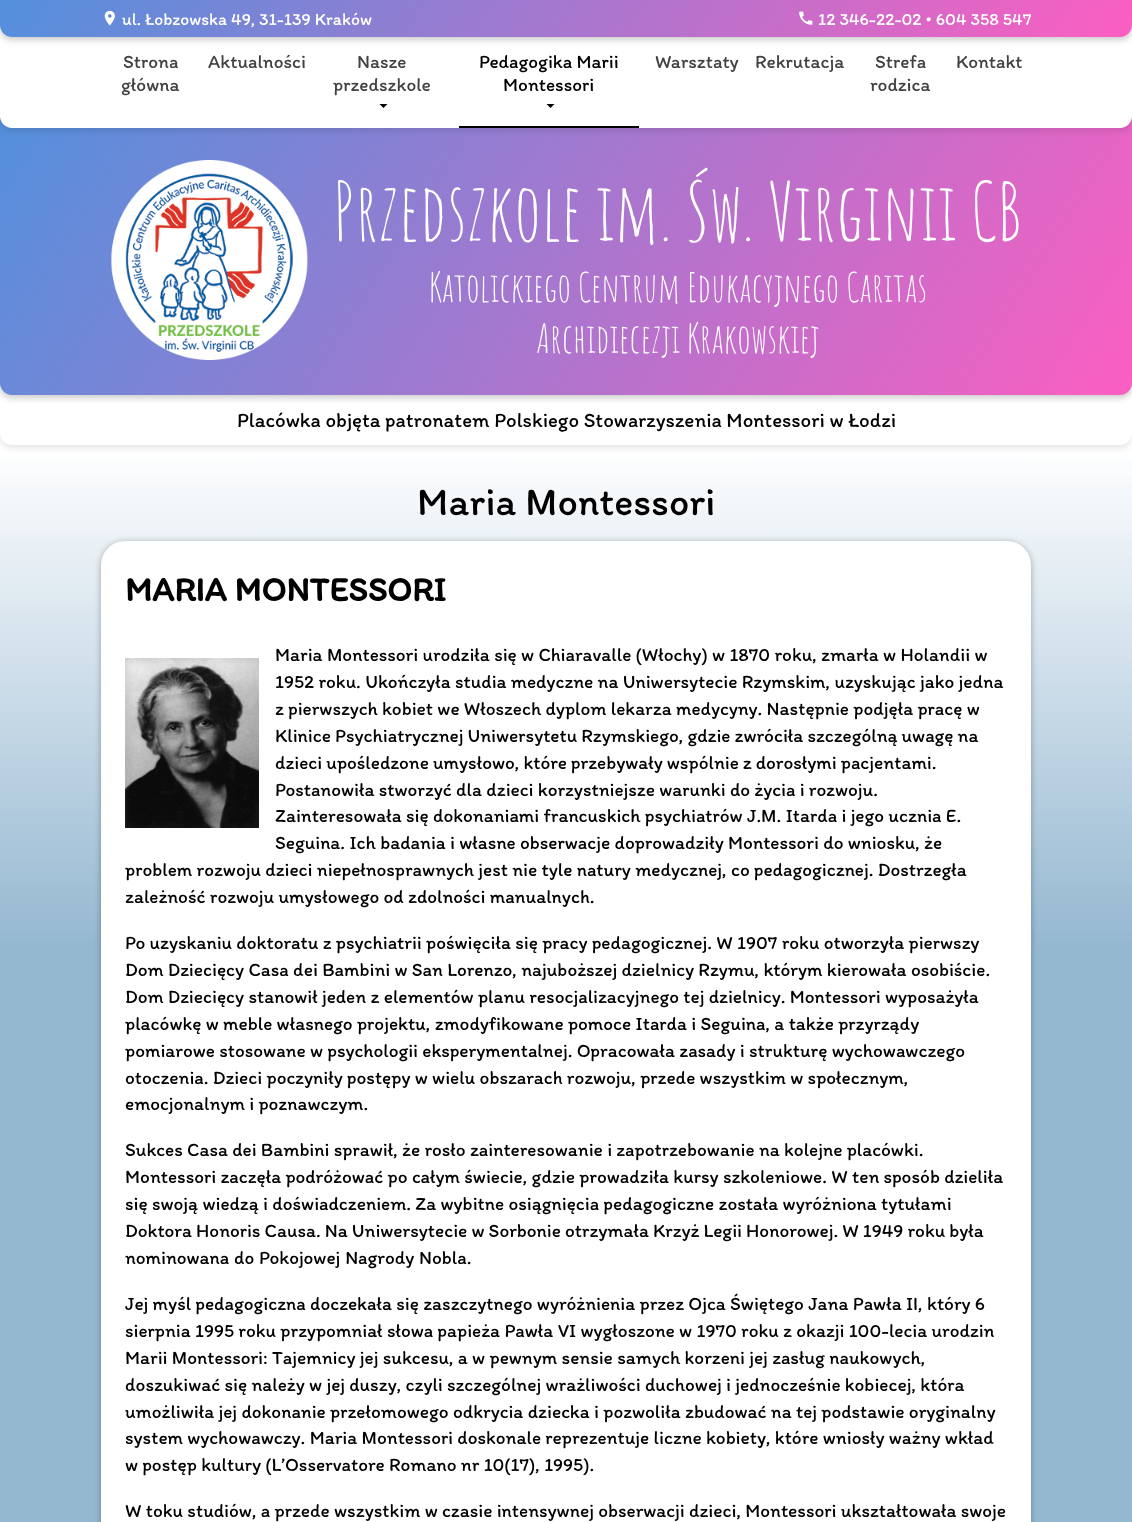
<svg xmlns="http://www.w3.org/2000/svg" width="1132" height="1522">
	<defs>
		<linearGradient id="g1" gradientUnits="userSpaceOnUse" x1="566" y1="945" x2="566" y2="445"><stop offset="0" stop-color="#95B8D1" /><stop offset="1" stop-color="#FFFFFF" /></linearGradient>
		<clipPath id="clip1"><path d="M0 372H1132V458H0ZM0 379H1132V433C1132 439.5 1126.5 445 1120 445H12C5.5 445 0 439.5 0 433Z" clip-rule="evenodd" /></clipPath>
		<linearGradient id="g2" gradientUnits="userSpaceOnUse" x1="1037" y1="548" x2="95" y2="-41"><stop offset="0" stop-color="#FB5EC1" /><stop offset="1" stop-color="#5390DC" /></linearGradient>
		<linearGradient id="g3" gradientUnits="userSpaceOnUse" x1="981" y1="278" x2="151" y2="-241"><stop offset="0" stop-color="#FB5EC1" /><stop offset="1" stop-color="#5390DC" /></linearGradient>
	</defs>
	<rect width="100%" height="100%" fill="#FFFFFF" />
	<rect x="0" y="115" width="1132" height="283" rx="12" fill="#000000" fill-opacity="0.2" filter="blur(3px)" />
	<rect x="0" y="457" width="1132" height="488" fill="url(#g1)" />
	<g clip-path="url(#clip1)">
		<rect x="0" y="382" width="1132" height="66" rx="12" fill="#000000" fill-opacity="0.1" filter="blur(3px)" />
	</g>
	<path d="M0 112H1132V383C1132 389.5 1126.5 395 1120 395H12C5.5 395 0 389.5 0 383Z" fill="url(#g2)" />
	<rect x="0" y="24" width="1132" height="107" rx="12" fill="#000000" fill-opacity="0.1" filter="blur(3px)" />
	<path d="M0 21H1132V116C1132 122.5 1126.5 128 1120 128H12C5.5 128 0 122.5 0 116Z" fill="#FFFFFF" />
	<rect x="0" y="3" width="1132" height="37" rx="12" fill="#000000" fill-opacity="0.2" filter="blur(3px)" />
	<path d="M0 0H1132V25C1132 31.5 1126.5 37 1120 37H12C5.5 37 0 31.5 0 25Z" fill="url(#g3)" />
	<image x="104" y="10" width="11" height="16" href="assets/img1.png" />
	<text x="122" y="25" font-family="Itim" font-size="17.6" fill="#FFFFFF">ul. Łobzowska 49, 31-139 Kraków</text>
	<image x="799" y="11" width="14" height="14" href="assets/img2.png" />
	<text x="818" y="25" font-family="Itim" font-size="17.6" fill="#FFFFFF">12 346-22-02 • 604 358 547</text>
	<g font-family="Itim" font-size="19.2" fill="#424242">
		<text x="123" y="68">Strona</text>
		<text x="121" y="91">główna</text>
		<text x="208" y="68">Aktualności</text>
		<text x="357" y="68">Nasze</text>
		<text x="333" y="91">przedszkole</text>
	</g>
	<path d="M379.5 104H387.5L383.5 108Z" fill="#000000" />
	<g font-family="Itim" font-size="19.2" fill="#000000">
		<text x="479" y="68">Pedagogika Marii</text>
		<text x="503" y="91">Montessori</text>
	</g>
	<path d="M546.5 104H554.5L550.5 108Z" fill="#000000" />
	<rect x="459" y="126" width="180" height="2" fill="#000000" />
	<g font-family="Itim" font-size="19.2" fill="#424242">
		<text x="655" y="68">Warsztaty</text>
		<text x="755" y="68">Rekrutacja</text>
		<text x="875" y="68">Strefa</text>
		<text x="870" y="91">rodzica</text>
		<text x="956" y="68">Kontakt</text>
	</g>
	<image x="111" y="160" width="197" height="200" href="assets/img3.png" />
	<text x="333" y="241" font-family="Amatic SC" font-size="80" fill="#FFFFFF">Przedszkole im. Św. Virginii CB</text>
	<g font-family="Amatic SC" font-size="40" fill="#FFFFFF">
		<text x="429" y="302">Katolickiego Centrum Edukacyjnego Caritas</text>
		<text x="536" y="353">Archidiecezji Krakowskiej</text>
	</g>
	<text x="237" y="427" font-family="Itim" font-size="20.8" fill="#000000">Placówka objęta patronatem Polskiego Stowarzyszenia Montessori w Łodzi</text>
	<rect x="0" y="945" width="1132" height="577" fill="#95B8D1" />
	<text x="417" y="515" font-family="Itim" font-size="40" fill="#000000">Maria Montessori</text>
	<rect x="101" y="542" width="930" height="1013" rx="24" fill="#000000" fill-opacity="0.3" filter="blur(3px)" />
	<rect x="101" y="541" width="930" height="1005" rx="24" fill="#FFFFFF" />
	<text x="125" y="601" font-family="Itim" font-size="34.5" font-weight="700" fill="#000000">MARIA MONTESSORI</text>
	<image x="125" y="658" width="134" height="170" href="assets/img4.png" />
	<g font-family="Itim" font-size="19.2" fill="#000000">
		<text x="275" y="661">Maria Montessori urodziła się w Chiaravalle (Włochy) w 1870 roku, zmarła w Holandii w</text>
		<text x="275" y="688">1952 roku. Ukończyła studia medyczne na Uniwersytecie Rzymskim, uzyskując</text>
		<text x="920" y="688">jako jedna</text>
		<text x="275" y="715">z pierwszych kobiet we Włoszech dyplom lekarza medycyny. Następnie podjęła pracę w</text>
		<text x="275" y="742" word-spacing="-0.25">Klinice Psychiatrycznej Uniwersytetu Rzymskiego, gdzie zwróciła szczególną uwagę na</text>
		<text x="275" y="769" word-spacing="-0.25">dzieci upośledzone umysłowo, które przebywały wspólnie z dorosłymi pacjentami.</text>
		<text x="275" y="796">Postanowiła stworzyć dla dzieci korzystniejsze warunki do życia i rozwoju.</text>
		<text x="275" y="822">Zainteresowała się dokonaniami francuskich psychiatrów</text>
		<text x="747" y="822">J.M. Itarda i jego ucznia E.</text>
		<text x="275" y="849">Seguina. Ich badania i własne obserwacje doprowadziły Montessori do wniosku, że</text>
		<text x="125" y="876">problem rozwoju dzieci niepełnosprawnych jest nie tyle natury medycznej, co pedagogicznej. Dostrzegła</text>
		<text x="125" y="903">zależność rozwoju umysłowego od zdolności manualnych.</text>
		<text x="125" y="949">Po uzyskaniu doktoratu z psychiatrii poświęciła się pracy pedagogicznej. W 1907 roku otworzyła pierwszy</text>
		<text x="125" y="976">Dom Dziecięcy Casa dei Bambini w San Lorenzo, najuboższej dzielnicy Rzymu, którym kierowała osobiście.</text>
		<text x="125" y="1003">Dom Dziecięcy stanowił jeden z elementów planu resocjalizacyjnego tej dzielnicy. Montessori wyposażyła</text>
		<text x="125" y="1030">placówkę w meble własnego projektu, zmodyfikowane pomoce Itarda i Seguina, a także przyrządy</text>
		<text x="125" y="1057">pomiarowe stosowane w psychologii eksperymentalnej. Opracowała zasady i strukturę wychowawczego</text>
		<text x="125" y="1084">otoczenia. Dzieci poczyniły postępy w wielu obszarach rozwoju, przede wszystkim w społecznym,</text>
		<text x="125" y="1110">emocjonalnym i poznawczym.</text>
		<text x="125" y="1156">Sukces Casa dei Bambini sprawił, że rosło zainteresowanie i zapotrzebowanie na kolejne placówki.</text>
		<text x="125" y="1183">Montessori zaczęła podróżować po całym świecie, gdzie prowadziła kursy szkoleniowe. W ten sposób dzieliła</text>
		<text x="125" y="1210">się swoją wiedzą i doświadczeniem. Za wybitne osiągnięcia pedagogiczne została wyróżniona tytułami</text>
		<text x="125" y="1237" word-spacing="-0.2">Doktora Honoris Causa. Na Uniwersytecie w Sorbonie otrzymała Krzyż Legii Honorowej. W 1949 roku była</text>
		<text x="125" y="1264" word-spacing="0.5">nominowana do Pokojowej Nagrody Nobla.</text>
		<text x="125" y="1310">Jej myśl pedagogiczna doczekała się zaszczytnego wyróżnienia przez Ojca Świętego Jana Pawła II, który 6</text>
		<text x="125" y="1337">sierpnia 1995 roku przypomniał słowa papieża Pawła VI wygłoszone w 1970 roku z okazji 100-lecia urodzin</text>
		<text x="125" y="1364">Marii Montessori: Tajemnicy jej sukcesu, a w pewnym sensie samych korzeni jej zasług naukowych,</text>
		<text x="125" y="1391">doszukiwać się należy w jej duszy, czyli szczególnej wrażliwości duchowej i jednocześnie kobiecej, która</text>
		<text x="125" y="1418">umożliwiła jej dokonanie przełomowego odkrycia dziecka i pozwoliła zbudować na tej podstawie oryginalny</text>
		<text x="125" y="1444">system wychowawczy. Maria Montessori doskonale reprezentuje liczne kobiety, które wniosły ważny wkład</text>
		<text x="125" y="1471">w postęp kultury (L’Osservatore Romano nr 10(17), 1995).</text>
		<text x="125" y="1517">W toku studiów, a przede wszystkim w czasie intensywnej obserwacji dzieci, Montessori ukształtowała swoje</text>
	</g>
</svg>
